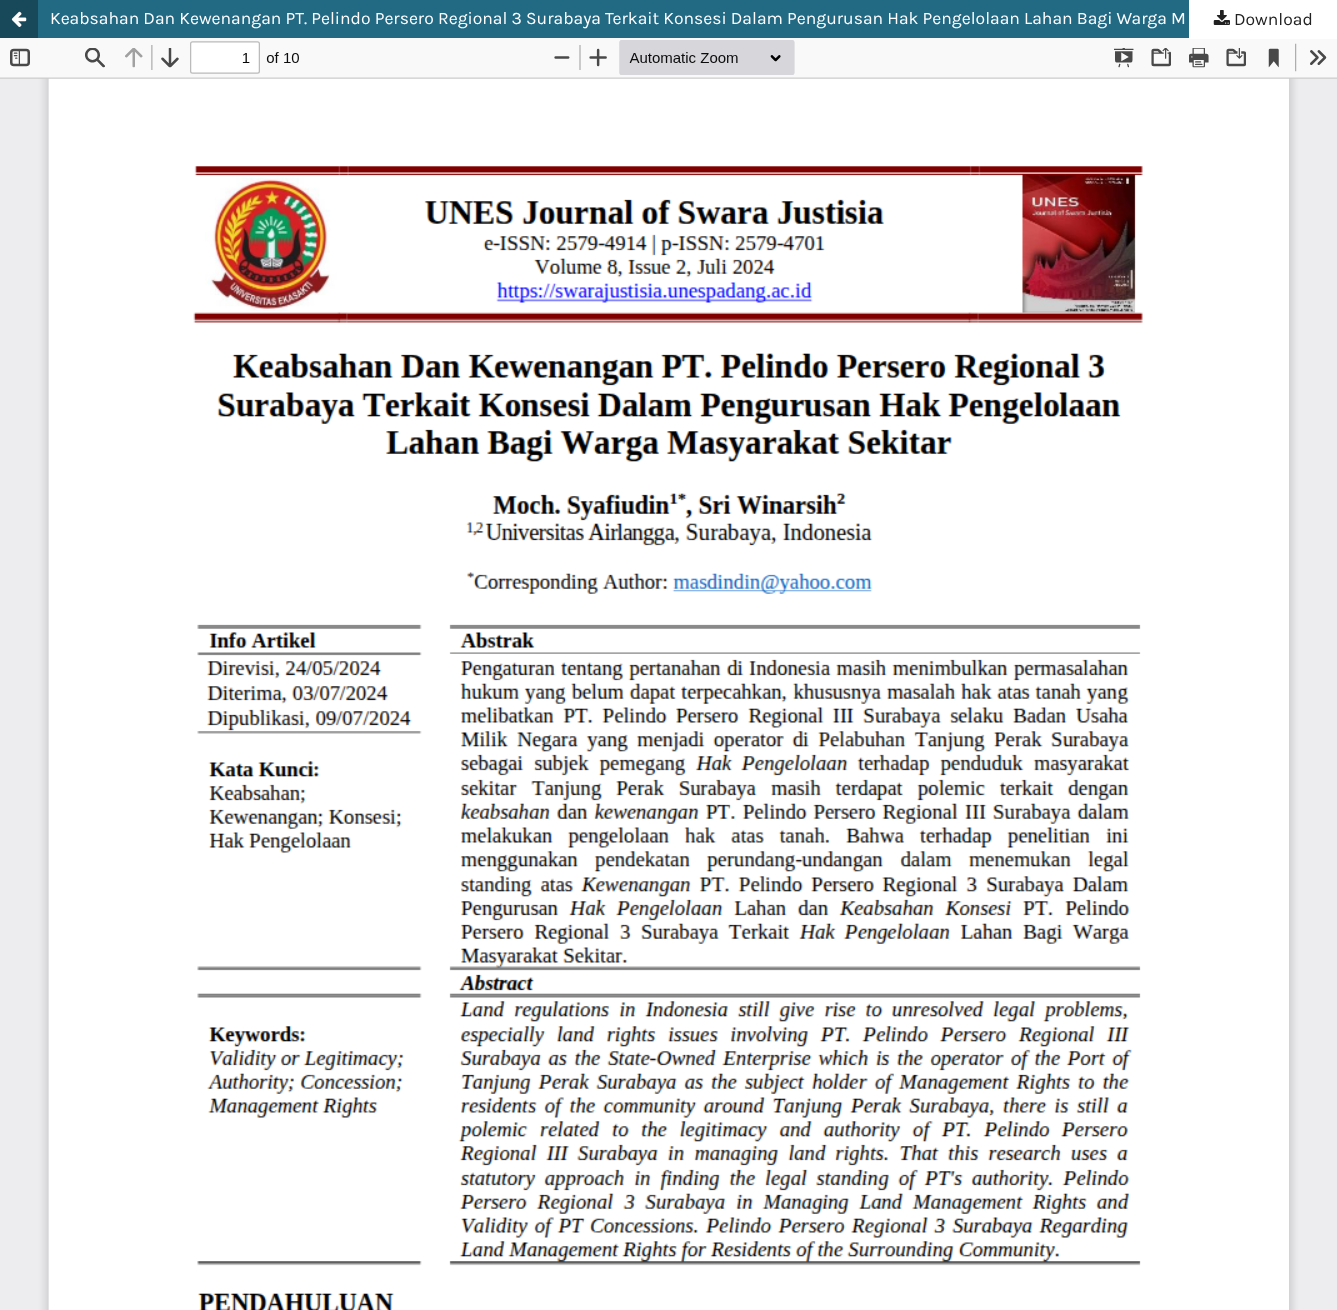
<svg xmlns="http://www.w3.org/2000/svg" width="1337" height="1310">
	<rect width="100%" height="100%" fill="#FFFFFF" />
	<rect x="38" y="0" width="1151" height="38" fill="#226984" />
	<rect x="0" y="0" width="38" height="38" fill="#18495B" />
	<image x="11" y="11" width="16" height="16" href="assets/img1.png" />
	<text x="50" y="24" font-family="Karla" font-size="17.5" fill="#FFFFFF">Keabsahan Dan Kewenangan PT. Pelindo Persero Regional 3 Surabaya Terkait Konsesi Dalam Pengurusan Hak Pengelolaan Lahan Bagi Warga M</text>
	<image x="0" y="38" width="1337" height="1272" href="assets/img3.png" />
	<rect x="1189" y="38" width="148" height="1" fill="#FFFFFF" />
	<image x="1213" y="10" width="17" height="15" href="assets/img2.png" />
	<text x="1234" y="25" font-family="Karla" font-size="17.5" fill="#212121">Download</text>
</svg>
